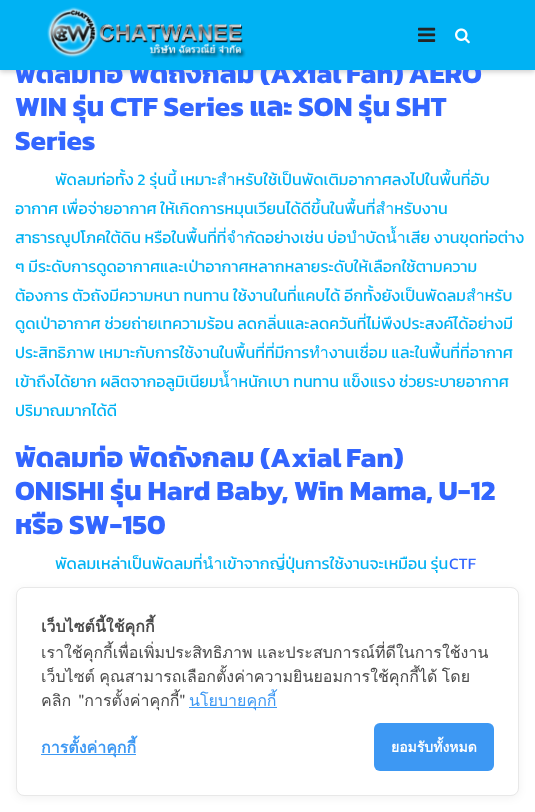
<svg xmlns="http://www.w3.org/2000/svg" width="535" height="812">
	<rect width="100%" height="100%" fill="#FFFFFF" />
	<rect x="0" y="2" width="535" height="70" fill="#101010" fill-opacity="0.2" filter="blur(2.5px)" />
	<g font-family="Kanit" font-size="28" font-weight="700" fill="#3366FF">
		<text x="15" y="83">พัดลมท่อ พัดถังกลม</text>
		<text x="260" y="83" word-spacing="-1">(Axial Fan) AERO</text>
	</g>
	<rect x="0" y="0" width="535" height="70" fill="#00B2F3" />
	<image x="47" y="7" width="199" height="51" href="assets/img1.png" />
	<image x="418" y="27" width="18" height="15" href="assets/img2.png" />
	<image x="455" y="28" width="15" height="16" href="assets/img3.png" />
	<g font-family="Kanit" font-size="28" font-weight="700" fill="#3366FF">
		<text x="15" y="116">WIN รุ่น CTF Series และ SON รุ่น SHT</text>
		<text x="15" y="150">Series</text>
	</g>
	<g font-family="Kanit" font-size="16" fill="#00B2F3">
		<text x="55" y="185">พัดลมท่อทั้ง 2 รุ่นนี้ เหมาะสำหรับใช้เป็นพัดเติมอากาศลงไปในพื้นที่อับ</text>
		<text x="15" y="214">อากาศ เพื่อจ่ายอากาศ ให้เกิดการหมุนเวียนได้ดีขึ้นในพื้นที่สำหรับงาน</text>
		<text x="15" y="243">สาธารณูปโภคใต้ดิน หรือในพื้นที่ที่จำกัดอย่างเช่น บ่อบำบัดน้ำเสีย งานขุดท่อต่าง</text>
		<text x="15" y="272">ๆ มีระดับการดูดอากาศและเป่าอากาศหลากหลายระดับให้เลือกใช้ตามความ</text>
		<text x="15" y="301">ต้องการ ตัวถังมีความหนา ทนทาน ใช้งานในที่แคบได้ อีกทั้งยังเป็นพัดลมสำหรับ</text>
		<text x="15" y="329">ดูดเป่าอากาศ ช่วยถ่ายเทความร้อน ลดกลิ่นและลดควันที่ไม่พึงประสงค์ได้อย่างมี</text>
		<text x="15" y="358">ประสิทธิภาพ เหมาะกับการใช้งานในพื้นที่ที่มีการทำงานเชื่อม และในพื้นที่ที่อากาศ</text>
		<text x="15" y="387">เข้าถึงได้ยาก ผลิตจากอลูมิเนียมน้ำหนักเบา ทนทาน แข็งแรง ช่วยระบายอากาศ</text>
		<text x="15" y="416">ปริมาณมากได้ดี</text>
	</g>
	<g font-family="Kanit" font-size="28" font-weight="700" fill="#3366FF">
		<text x="15" y="467">พัดลมท่อ พัดถังกลม</text>
		<text x="260" y="467" word-spacing="-1">(Axial Fan)</text>
		<text x="15" y="500">ONISHI รุ่น Hard Baby, Win Mama, U-12</text>
		<text x="15" y="534">หรือ SW-150</text>
	</g>
	<text x="55" y="569" font-family="Kanit" font-size="16" fill="#00B2F3">พัดลมเหล่าเป็นพัดลมที่นำเข้าจากญี่ปุ่นการใช้งานจะเหมือน รุ่น</text>
	<text x="449" y="569" font-family="Kanit" font-size="16" fill="#3366FF">CTF</text>
	<rect x="16" y="589" width="503" height="209" rx="8" fill="#000000" fill-opacity="0.05" filter="blur(4px)" />
	<rect x="16.5" y="587.5" width="502" height="208" rx="7.5" fill="#FFFFFF" stroke="#E8E8E8" />
	<text x="41" y="632" font-family="Loma" font-size="16" font-weight="700" fill="#4A4A4A">เว็บไซต์นี้ใช้คุกกี้</text>
	<g font-family="Loma" font-size="16" fill="#4A4A4A">
		<text x="41" y="658" word-spacing="-1">เราใช้คุกกี้เพื่อเพิ่มประสิทธิภาพ และประสบการณ์ที่ดีในการใช้งาน</text>
		<text x="41" y="682" word-spacing="-1">เว็บไซต์ คุณสามารถเลือกตั้งค่าความยินยอมการใช้คุกกี้ได้ โดย</text>
		<text x="41" y="706" word-spacing="2">คลิก "การตั้งค่าคุกกี้"</text>
	</g>
	<rect x="189" y="707" width="88" height="1" fill="#3D98F3" />
	<text x="189" y="706" font-family="Loma" font-size="16" fill="#3D98F3">นโยบายคุกกี้</text>
	<rect x="41" y="754" width="95" height="1" fill="#3D98F3" />
	<text x="41" y="753" font-family="Loma" font-size="16" font-weight="700" fill="#3D98F3">การตั้งค่าคุกกี้</text>
	<rect x="374" y="723" width="120" height="48" rx="6" fill="#3D98F3" />
	<text x="391" y="752" font-family="Loma" font-size="14" font-weight="700" fill="#FFFFFF">ยอมรับทั้งหมด</text>
</svg>
